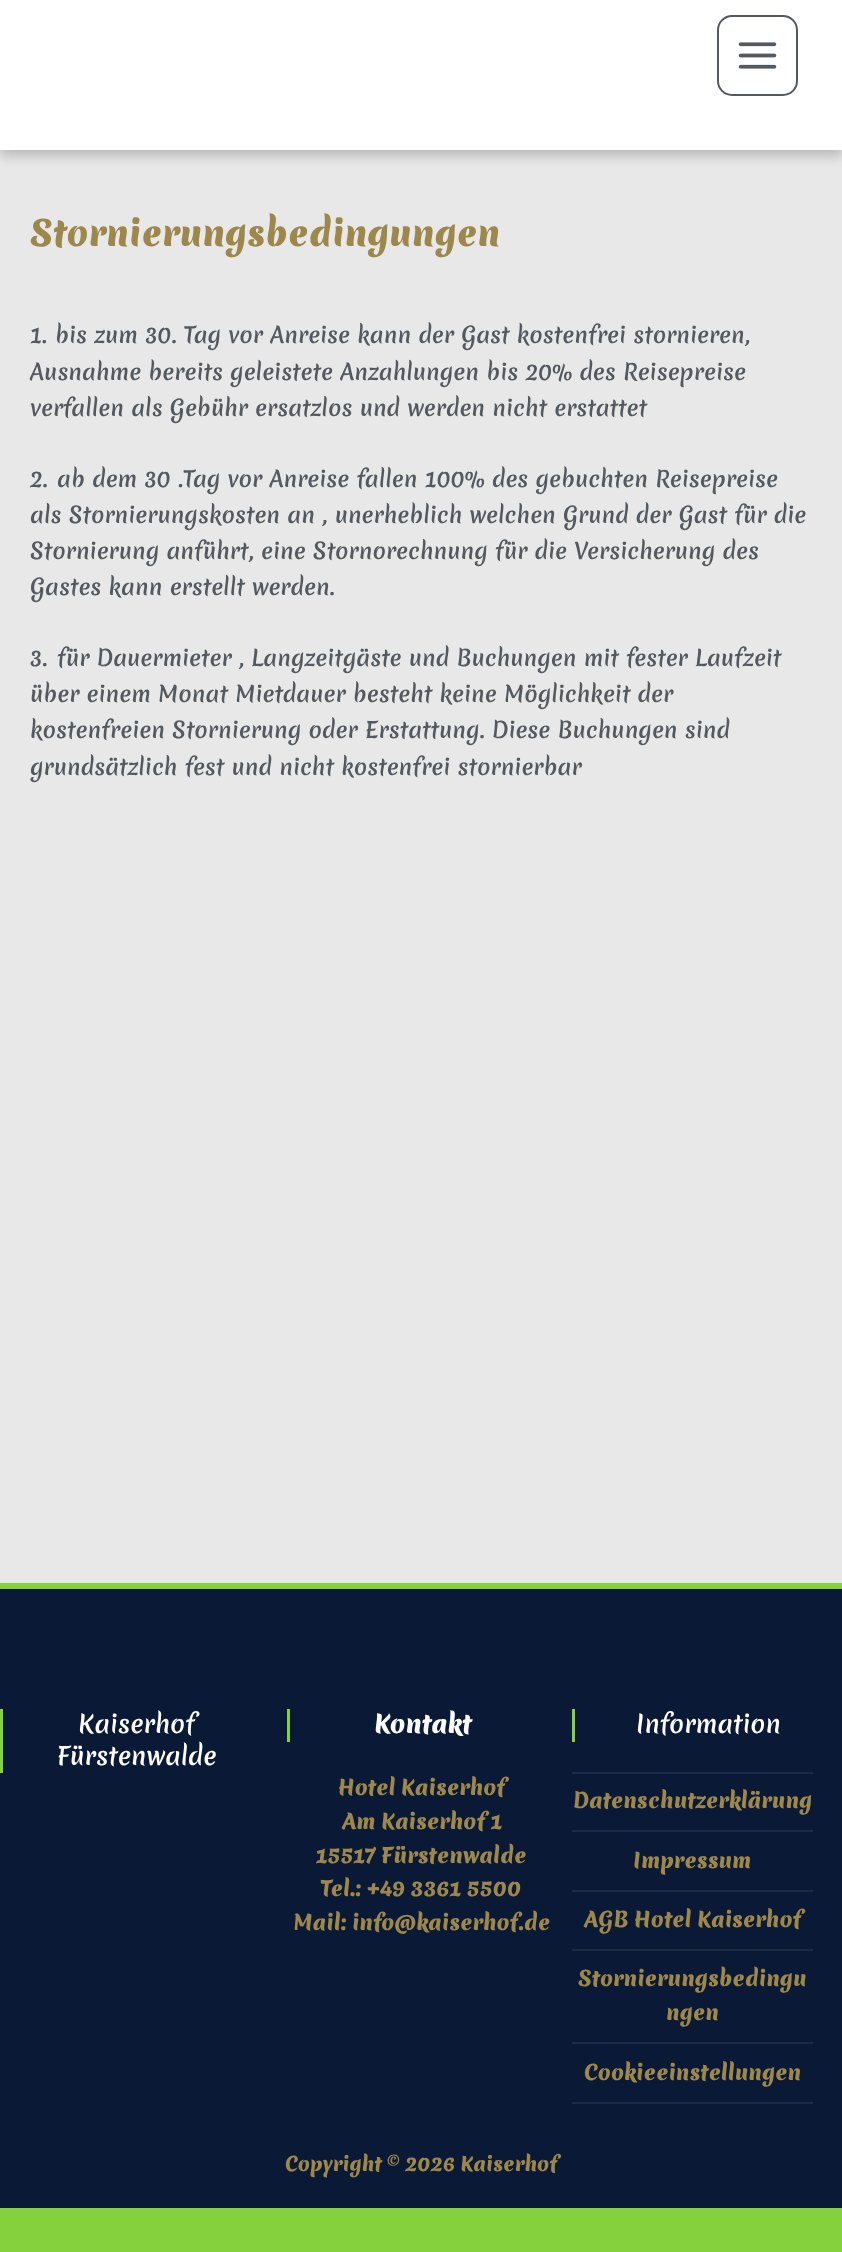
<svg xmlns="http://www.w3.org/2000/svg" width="842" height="2252">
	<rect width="100%" height="100%" fill="#E8E8E8" />
	<rect x="0" y="6" width="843" height="150" fill="#000000" fill-opacity="0.2" filter="blur(6px)" />
	<rect x="0" y="0" width="842" height="150" fill="#FFFFFF" />
	<rect x="718" y="16" width="79" height="79" rx="14" fill="none" stroke="#54595F" stroke-width="2" />
	<image x="738" y="42" width="39" height="27" href="assets/img1.png" />
	<text x="30" y="246" font-family="Merienda" font-size="34.25" font-weight="900" fill="#9D874A">Stornierungsbedingungen</text>
	<g font-family="Merienda" font-size="21.9" font-weight="600" fill="#54595F">
		<text x="30" y="343">1.</text>
		<text x="55" y="343">bis zum 30. Tag vor Anreise kann der Gast kostenfrei stornieren,</text>
		<text x="30" y="380">Ausnahme bereits geleistete Anzahlungen bis 20% des Reisepreise</text>
		<text x="30" y="416">verfallen als Gebühr ersatzlos und werden nicht erstattet</text>
		<text x="30" y="487">2.</text>
		<text x="57" y="487">ab dem 30 .Tag vor Anreise fallen 100% des gebuchten Reisepreise</text>
		<text x="30" y="523">als Stornierungskosten an , unerheblich welchen Grund der Gast für die</text>
		<text x="30" y="559">Stornierung anführt, eine Stornorechnung für die Versicherung des</text>
		<text x="30" y="595">Gastes kann erstellt werden.</text>
		<text x="30" y="666">3.</text>
		<text x="57" y="666">für Dauermieter , Langzeitgäste und Buchungen mit fester Laufzeit</text>
		<text x="30" y="702">über einem Monat Mietdauer besteht keine Möglichkeit der</text>
		<text x="30" y="738">kostenfreien Stornierung oder Erstattung. Diese Buchungen sind</text>
		<text x="30" y="775">grundsätzlich fest und nicht kostenfrei stornierbar</text>
	</g>
	<rect x="0" y="1589" width="842" height="619" fill="#0A1935" />
	<rect x="0" y="1583" width="842" height="6" fill="#85D13D" />
	<rect x="0" y="1709" width="3" height="64" fill="#85D13D" />
	<g font-family="Merienda" font-size="24.5" font-weight="600" fill="#FFFFFF">
		<text x="78" y="1733">Kaiserhof</text>
		<text x="57" y="1765">Fürstenwalde</text>
	</g>
	<rect x="287" y="1709" width="3" height="33" fill="#85D13D" />
	<text x="374" y="1733" font-family="Merienda" font-size="24.5" font-weight="900" fill="#FFFFFF">Kontakt</text>
	<g font-family="Merienda" font-size="20.5" font-weight="900" fill="#9D874A">
		<text x="338" y="1795">Hotel Kaiserhof</text>
		<text x="342" y="1829">Am Kaiserhof 1</text>
		<text x="316" y="1863">15517 Fürstenwalde</text>
		<text x="321" y="1896">Tel.: +49 3361 5500</text>
		<text x="293" y="1930">Mail: info@kaiserhof.de</text>
	</g>
	<rect x="572" y="1709" width="3" height="33" fill="#85D13D" />
	<text x="636" y="1733" font-family="Merienda" font-size="24.5" font-weight="600" fill="#FFFFFF">Information</text>
	<rect x="572" y="2102" width="241" height="2" fill="#1D2A44" />
	<rect x="572" y="1772" width="241" height="2" fill="#1D2A44" />
	<text x="573" y="1808" font-family="Merienda" font-size="20.5" font-weight="900" fill="#9D874A">Datenschutzerklärung</text>
	<rect x="572" y="1830" width="241" height="2" fill="#1D2A44" />
	<text x="633" y="1868" font-family="Merienda" font-size="20.5" font-weight="900" fill="#9D874A">Impressum</text>
	<rect x="572" y="1890" width="241" height="2" fill="#1D2A44" />
	<text x="584" y="1927" font-family="Merienda" font-size="20.5" font-weight="900" fill="#9D874A">AGB Hotel Kaiserhof</text>
	<rect x="572" y="1949" width="241" height="2" fill="#1D2A44" />
	<g font-family="Merienda" font-size="20.5" font-weight="900" fill="#9D874A">
		<text x="578" y="1986">Stornierungsbedingu</text>
		<text x="666" y="2020">ngen</text>
	</g>
	<rect x="572" y="2042" width="241" height="2" fill="#1D2A44" />
	<text x="584" y="2080" font-family="Merienda" font-size="20.5" font-weight="900" fill="#9D874A">Cookieeinstellungen</text>
	<text x="285" y="2171" font-family="Merienda" font-size="19.1" font-weight="900" fill="#9D874A">Copyright © 2026 Kaiserhof</text>
	<rect x="0" y="2208" width="842" height="44" fill="#85D13D" />
</svg>
